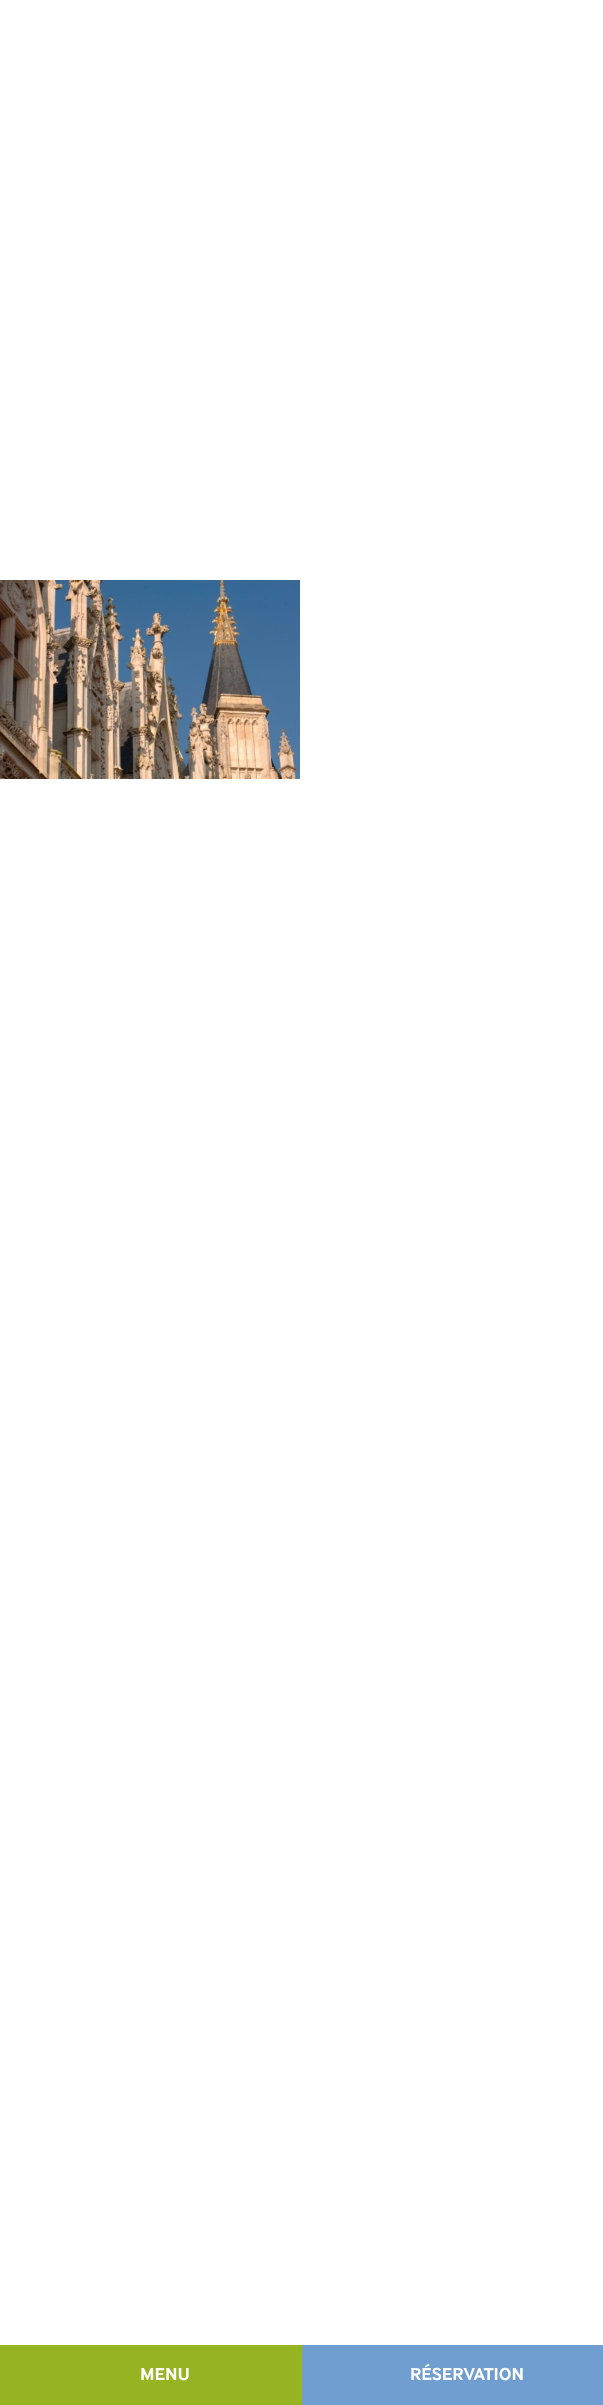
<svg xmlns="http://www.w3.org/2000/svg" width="603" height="2405">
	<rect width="100%" height="100%" fill="#FFFFFF" />
	<image x="0" y="580" width="300" height="199" href="assets/img1.png" />
	<rect x="0" y="2345" width="302" height="60" fill="#96B422" />
	<text x="140" y="2380" font-family="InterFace" font-size="18" font-weight="700" fill="#FFFFFF">MENU</text>
	<rect x="302" y="2345" width="301" height="60" fill="#709ED0" />
	<text x="410" y="2380" font-family="InterFace" font-size="18" font-weight="700" fill="#FFFFFF">RÉSERVATION</text>
</svg>
